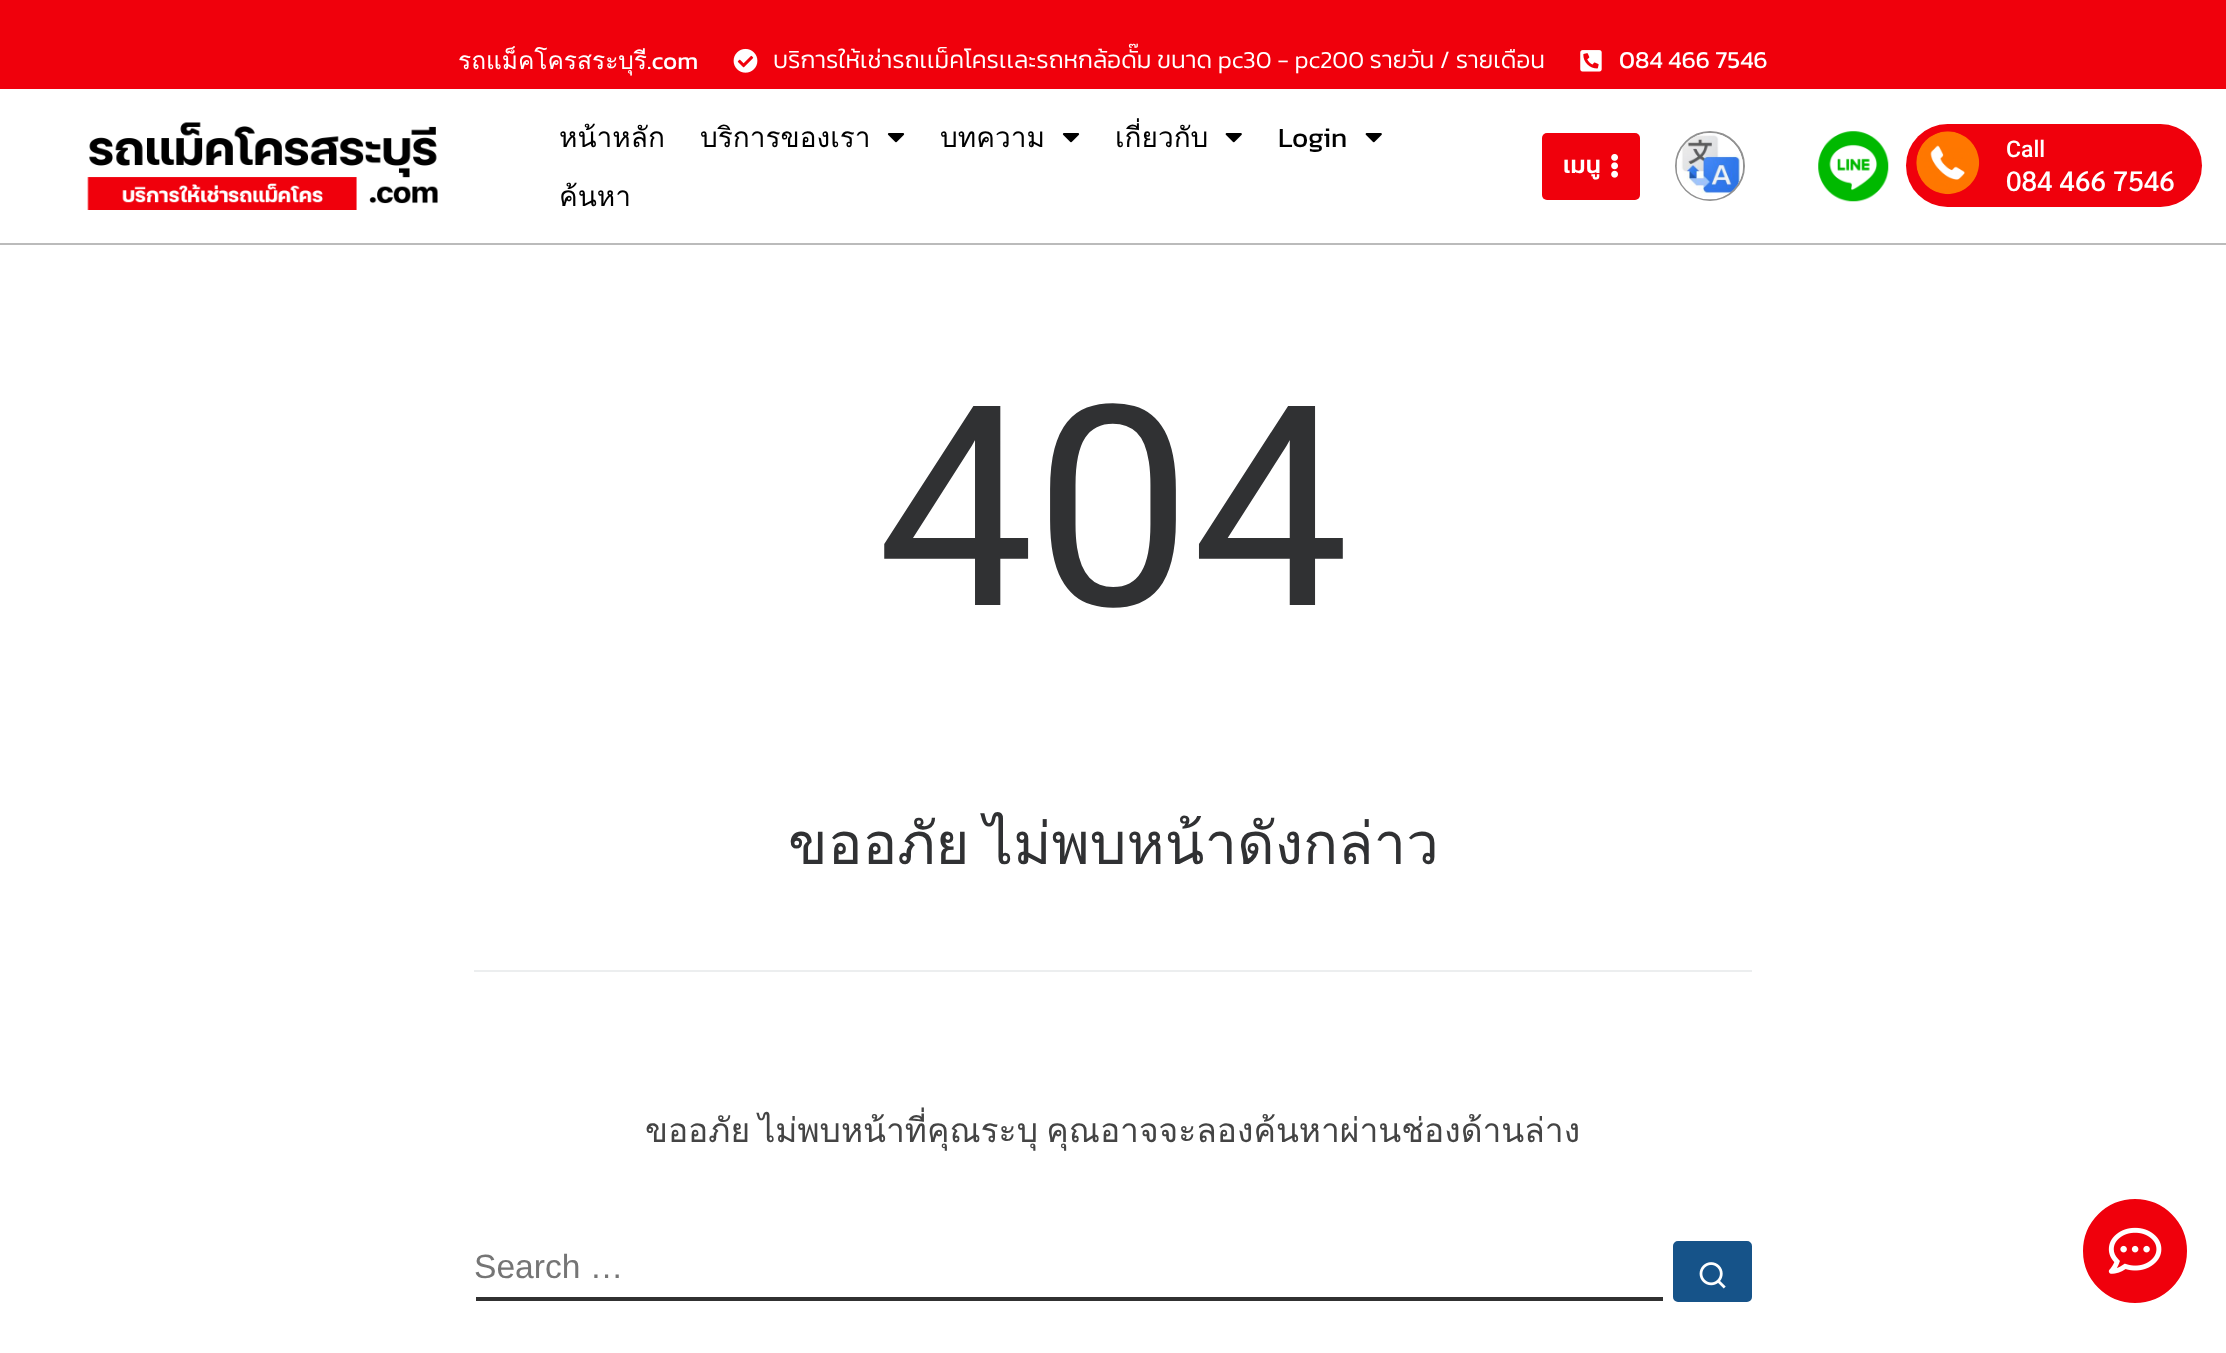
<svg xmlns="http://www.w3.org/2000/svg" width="2226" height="1353">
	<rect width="100%" height="100%" fill="#FFFFFF" />
	<rect x="0" y="0" width="2226" height="89" fill="#F0000C" />
	<text x="458" y="69" font-family="Loma" font-size="24.5" fill="#FFFFFF">รถแม็คโครสระบุรี</text>
	<text x="647" y="69" font-family="Kanit" font-size="24.5" fill="#FFFFFF">.com</text>
	<image x="733" y="48" width="25" height="25" href="assets/img1.png" />
	<text x="773" y="68" font-family="Kanit" font-size="24.5" font-weight="300" fill="#FFFFFF">บริการให้เช่ารถเเม็คโครเเละรถหกล้อดั๊ม ขนาด pc30 - pc200 รายวัน / รายเดือน</text>
	<image x="1580" y="50" width="22" height="22" href="assets/img2.png" />
	<text x="1619" y="68" font-family="Kanit" font-size="24.5" fill="#FFFFFF">084 466 7546</text>
	<rect x="0" y="243" width="2226" height="2" fill="#BBBBBB" />
	<image x="87" y="122" width="351" height="88" href="assets/img3.png" />
	<g font-family="Loma" font-size="28" fill="#000000">
		<text x="559" y="147">หน้าหลัก</text>
		<text x="700" y="147">บริการของเรา</text>
	</g>
	<image x="887" y="133" width="18" height="10" href="assets/img4.png" />
	<text x="940" y="147" font-family="Loma" font-size="28" fill="#000000">บทความ</text>
	<image x="1062" y="133" width="18" height="10" href="assets/img4.png" />
	<text x="1115" y="147" font-family="Loma" font-size="28" fill="#000000">เกี่ยวกับ</text>
	<image x="1225" y="133" width="17" height="10" href="assets/img5.png" />
	<text x="1278" y="147" font-family="Kanit" font-size="28" fill="#000000">Login</text>
	<image x="1365" y="133" width="17" height="10" href="assets/img5.png" />
	<text x="559" y="206" font-family="Loma" font-size="28" fill="#000000">ค้นหา</text>
	<rect x="1542" y="133" width="98" height="67" rx="5" fill="#F0000C" />
	<text x="1563" y="173" font-family="Kanit" font-size="24.5" font-weight="500" fill="#FFFFFF">เมนู</text>
	<image x="1611" y="154" width="7" height="24" href="assets/img6.png" />
	<circle cx="1710" cy="166" r="34" fill="none" stroke="#919191" stroke-width="2" />
	<image x="1676" y="133" width="67" height="67" href="assets/img7.png" />
	<image x="1818" y="131" width="71" height="71" href="assets/img8.png" />
	<rect x="1906" y="124" width="296" height="83" rx="41.5" fill="#F0000C" />
	<image x="1916" y="131" width="64" height="64" href="assets/img9.png" />
	<text x="2006" y="157" font-family="Roboto" font-size="23" font-weight="500" fill="#FFFFFF">Call</text>
	<text x="2006" y="191" font-family="Sarabun" font-size="28" font-weight="500" fill="#FFFFFF">084 466 7546</text>
	<text x="877" y="605" font-family="Roboto" font-size="280" fill="#303133">404</text>
	<text x="788" y="864" word-spacing="-5" font-family="Loma" font-size="58" fill="#303133">ขออภัย ไม่พบหน้าดังกล่าว</text>
	<rect x="474" y="970" width="1278" height="2" fill="#ECEEEF" />
	<text x="645" y="1142" word-spacing="-3" font-family="Loma" font-size="33.6" fill="#444444">ขออภัย ไม่พบหน้าที่คุณระบุ คุณอาจจะลองค้นหาผ่านช่องด้านล่าง</text>
	<rect x="476" y="1297" width="1187" height="4" fill="#313131" />
	<text x="474" y="1278" font-family="Liberation Sans" font-size="33.6" fill="#757575">Search …</text>
	<rect x="1675" y="1243" width="75" height="57" rx="3" fill="#165389" stroke="#165389" stroke-width="4" />
	<image x="1699" y="1262" width="27" height="27" href="assets/img10.png" />
	<circle cx="2135" cy="1251" r="54" fill="#F0000C" stroke="#FFFFFF" stroke-width="4" />
	<image x="2108" y="1227" width="54" height="47" href="assets/img11.png" />
</svg>
